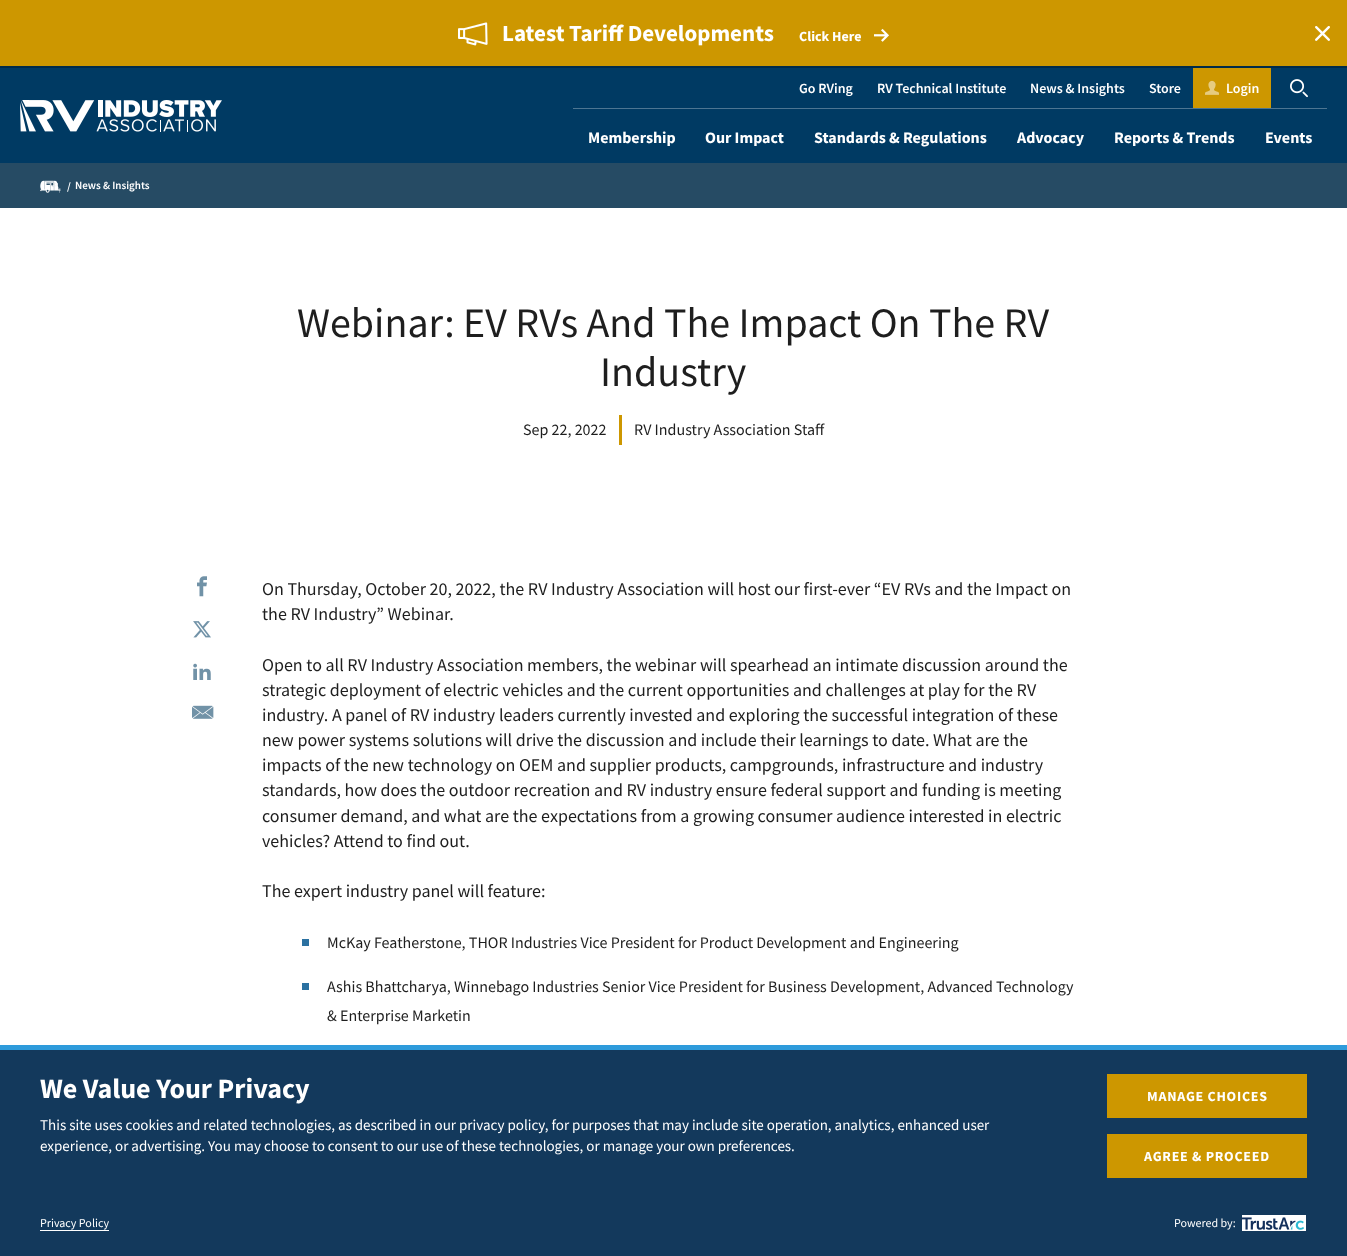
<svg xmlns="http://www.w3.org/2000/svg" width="1347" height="1256">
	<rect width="100%" height="100%" fill="#FFFFFF" />
	<rect x="0" y="0" width="1347" height="66" fill="#CD9700" />
	<rect x="0" y="66" width="1347" height="2" fill="#002B49" />
	<image x="458" y="22" width="30" height="24" href="assets/img1.png" />
	<text x="502" y="41" font-family="Source Sans Pro" font-size="23" font-weight="700" fill="#FFFFFF">Latest Tariff Developments</text>
	<text x="799" y="41" font-family="Source Sans Pro" font-size="14" font-weight="700" fill="#FFFFFF">Click Here</text>
	<image x="874" y="28" width="15" height="14" href="assets/img2.png" />
	<image x="1315" y="26" width="15" height="15" href="assets/img3.png" />
	<rect x="0" y="68" width="1347" height="95" fill="#003A63" />
	<image x="20" y="100" width="202" height="32" href="assets/img4.png" />
	<g font-family="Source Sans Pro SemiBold" font-size="14" font-weight="600" fill="#FFFFFF">
		<text x="799" y="93">Go RVing</text>
		<text x="877" y="93">RV Technical Institute</text>
		<text x="1030" y="93">News &amp; Insights</text>
		<text x="1149" y="93">Store</text>
	</g>
	<rect x="1193" y="68" width="78" height="40" fill="#CD9700" />
	<image x="1205" y="80" width="14" height="15" href="assets/img5.png" />
	<text x="1226" y="93" font-family="Source Sans Pro SemiBold" font-size="14" font-weight="600" fill="#FFFFFF">Login</text>
	<image x="1290" y="79" width="18" height="19" href="assets/img6.png" />
	<rect x="573" y="108" width="754" height="1" fill="#4D7592" />
	<g font-family="Source Sans Pro" font-size="16" font-weight="700" fill="#FFFFFF">
		<text x="588" y="143">Membership</text>
		<text x="705" y="143">Our Impact</text>
		<text x="814" y="143">Standards &amp; Regulations</text>
		<text x="1017" y="143">Advocacy</text>
		<text x="1114" y="143">Reports &amp; Trends</text>
		<text x="1265" y="143">Events</text>
	</g>
	<rect x="0" y="163" width="1347" height="45" fill="#264B64" />
	<image x="40" y="180" width="21" height="13" href="assets/img7.png" />
	<g font-family="Source Sans Pro SemiBold" font-size="11" font-weight="600" fill="#FFFFFF">
		<text x="67" y="190">/</text>
		<text x="75" y="189">News &amp; Insights</text>
	</g>
	<g font-family="Source Sans Pro" font-size="42" fill="#1E1E1E">
		<text x="297" y="337">Webinar: EV RVs And The Impact On The RV</text>
		<text x="600" y="386">Industry</text>
	</g>
	<text x="523" y="435" font-family="Source Sans Pro" font-size="16" fill="#1E1E1E">Sep 22, 2022</text>
	<rect x="619" y="415" width="3" height="30" fill="#CD9700" />
	<text x="634" y="435" font-family="Source Sans Pro" font-size="16" fill="#1E1E1E">RV Industry Association Staff</text>
	<image x="197" y="576" width="10" height="21" href="assets/img8.png" />
	<image x="193" y="621" width="18" height="17" href="assets/img9.png" />
	<image x="193" y="663" width="18" height="17" href="assets/img10.png" />
	<image x="192" y="705" width="22" height="14" href="assets/img11.png" />
	<g font-family="Source Sans Pro" font-size="18" fill="#1E1E1E">
		<text x="262" y="595">On Thursday, October 20, 2022, the RV Industry Association will host our first-ever “EV RVs and the Impact on</text>
		<text x="262" y="620">the RV Industry” Webinar.</text>
		<text x="262" y="671">Open to all RV Industry Association members, the webinar will spearhead an intimate discussion around the</text>
		<text x="262" y="696">strategic deployment of electric vehicles and the current opportunities and challenges at play for the RV</text>
		<text x="262" y="721">industry. A panel of RV industry leaders currently invested and exploring the successful integration of these</text>
		<text x="262" y="746">new power systems solutions will drive the discussion and include their learnings to date. What are the</text>
		<text x="262" y="771">impacts of the new technology on OEM and supplier products, campgrounds, infrastructure and industry</text>
		<text x="262" y="796">standards, how does the outdoor recreation and RV industry ensure federal support and funding is meeting</text>
		<text x="262" y="822">consumer demand, and what are the expectations from a growing consumer audience interested in electric</text>
		<text x="262" y="847">vehicles? Attend to find out.</text>
		<text x="262" y="897">The expert industry panel will feature:</text>
	</g>
	<rect x="302" y="939" width="7" height="7" fill="#2B71A1" />
	<text x="327" y="948" font-family="Source Sans Pro" font-size="16" fill="#1E1E1E">McKay Featherstone, THOR Industries Vice President for Product Development and Engineering</text>
	<rect x="302" y="983" width="7" height="7" fill="#2B71A1" />
	<g font-family="Source Sans Pro" font-size="16" fill="#1E1E1E">
		<text x="327" y="992">Ashis Bhattcharya, Winnebago Industries Senior Vice President for Business Development, Advanced Technology</text>
		<text x="327" y="1021">&amp; Enterprise Marketin</text>
	</g>
	<rect x="0" y="1050" width="1347" height="206" fill="#13395C" />
	<rect x="0" y="1045" width="1347" height="5" fill="#2E9BDB" />
	<text x="40" y="1098" font-family="Source Sans Pro" font-size="28" font-weight="700" fill="#FFFFFF">We Value Your Privacy</text>
	<g font-family="Source Sans Pro" font-size="15" fill="#FFFFFF">
		<text x="40" y="1130">This site uses cookies and related technologies, as described in our privacy policy, for purposes that may include site operation, analytics, enhanced user</text>
		<text x="40" y="1151">experience, or advertising. You may choose to consent to our use of these technologies, or manage your own preferences.</text>
	</g>
	<rect x="1107" y="1074" width="200" height="44" fill="#CD9700" />
	<text x="1147" y="1101" font-family="Source Sans Pro" font-size="14" font-weight="700" letter-spacing="0.75" fill="#FFFFFF">MANAGE CHOICES</text>
	<rect x="1107" y="1134" width="200" height="44" fill="#CD9700" />
	<text x="1144" y="1161" font-family="Source Sans Pro" font-size="14" font-weight="700" letter-spacing="0.75" fill="#FFFFFF">AGREE &amp; PROCEED</text>
	<text x="40" y="1227" font-family="Source Sans Pro" font-size="12" fill="#FFFFFF">Privacy Policy</text>
	<rect x="40" y="1230" width="69" height="1" fill="#FFFFFF" />
	<text x="1174" y="1227" font-family="Source Sans Pro" font-size="12" fill="#FFFFFF">Powered by:</text>
	<image x="1241" y="1215" width="65" height="16" href="assets/img12.png" />
</svg>
